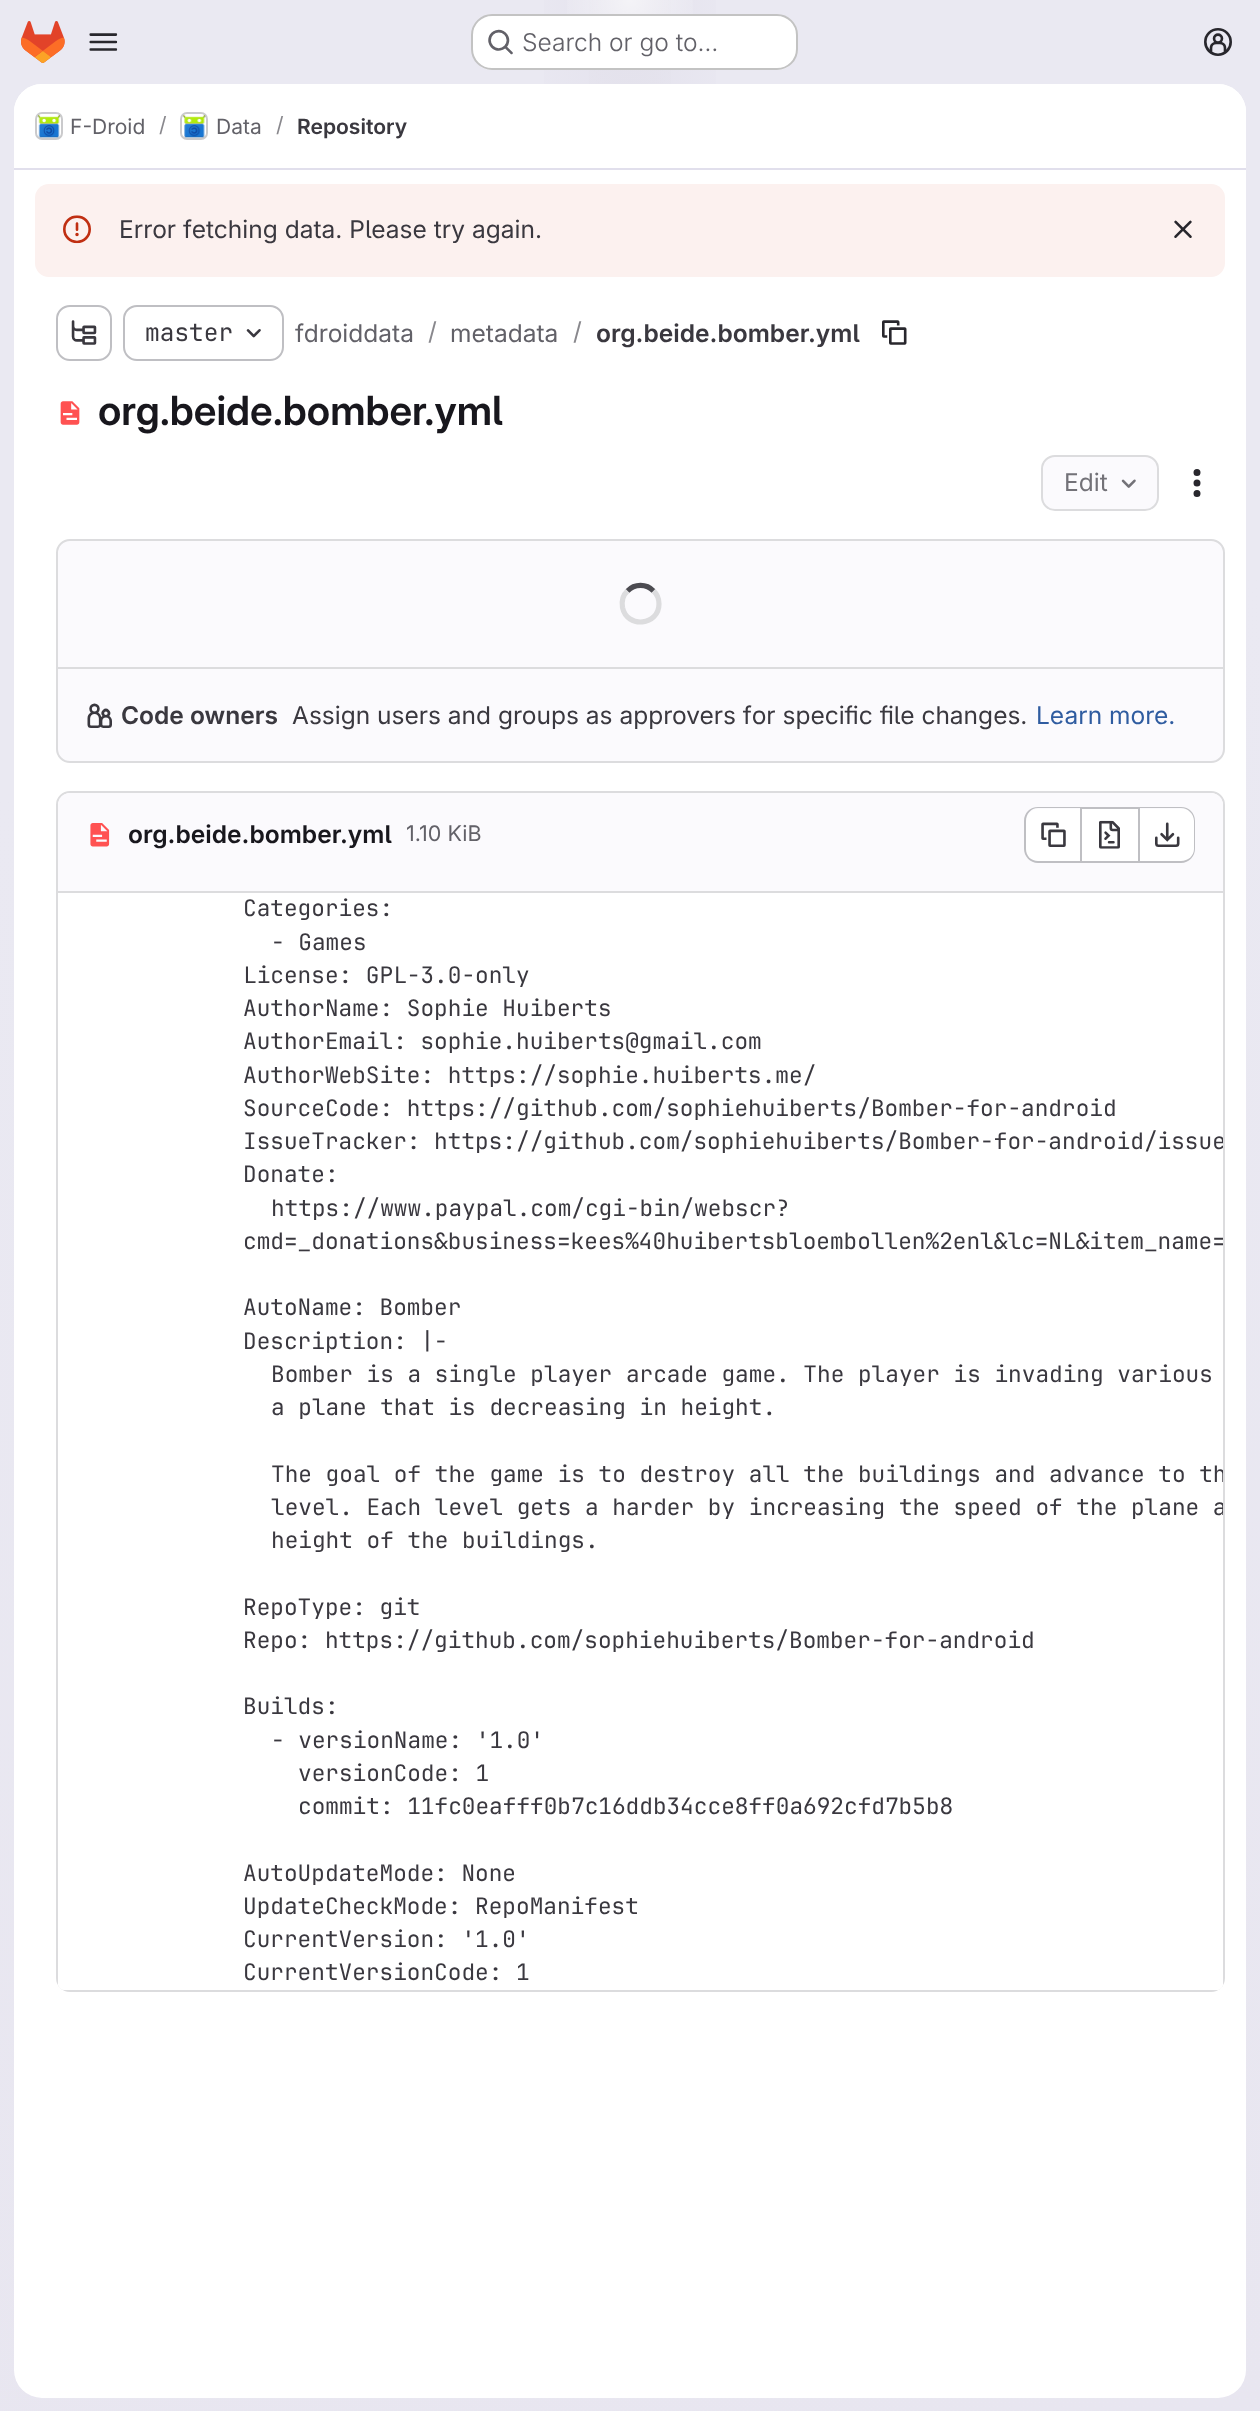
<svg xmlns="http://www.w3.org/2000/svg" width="1260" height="2411">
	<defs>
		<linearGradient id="g1" gradientUnits="userSpaceOnUse" x1="855" y1="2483" x2="405" y2="-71"><stop offset="0" stop-color="#E8E6F0" /><stop offset="0.7" stop-color="#EAE9F2" /></linearGradient>
		<radialGradient id="g2" gradientUnits="userSpaceOnUse" cx="0" cy="0" r="1" gradientTransform="matrix(630 0 0 2412 630 0)"><stop offset="0" stop-color="#E4E2ED" /><stop offset="0.19" stop-color="#E4E2ED" stop-opacity="0" /></radialGradient>
		<radialGradient id="g3" gradientUnits="userSpaceOnUse" cx="0" cy="0" r="1" gradientTransform="matrix(630 0 0 2412 630 0)"><stop offset="0" stop-color="#E4E2EC" /><stop offset="0.14" stop-color="#E4E2EC" stop-opacity="0" /></radialGradient>
		<radialGradient id="g4" gradientUnits="userSpaceOnUse" cx="630" cy="0" r="2492"><stop offset="0" stop-color="#FFFFFF" stop-opacity="0.6" /><stop offset="0.03" stop-color="#FFFFFF" stop-opacity="0" /></radialGradient>
		<clipPath id="clip1"><path d="M58 893H1223V1983C1223 1987 1220 1990 1216 1990H65C61 1990 58 1987 58 1983Z" /></clipPath>
	</defs>
	<rect width="100%" height="100%" fill="#FFFFFF" />
	<rect x="0" y="0" width="1260" height="2411" fill="url(#g1)" />
	<rect x="544" y="0" width="172" height="84" fill="url(#g2)" />
	<rect x="589" y="0" width="82" height="84" fill="url(#g3)" />
	<rect x="567" y="0" width="126" height="14" fill="url(#g4)" />
	<image x="21" y="21" width="44" height="42" href="assets/img1.png" />
	<image x="89" y="33" width="29" height="18" href="assets/img2.png" />
	<rect x="471" y="14" width="327" height="56" rx="21" fill="#FFFFFF" />
	<rect x="472" y="15" width="325" height="54" rx="20" fill="none" stroke="#050506" stroke-opacity="0.24" stroke-width="2" />
	<image x="488" y="29" width="25" height="26" href="assets/img3.png" />
	<text x="522" y="51" font-family="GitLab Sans" font-size="24.5" font-weight="300" fill="#626168">Search or go to…</text>
	<image x="1204" y="28" width="28" height="28" href="assets/img4.png" />
	<rect x="14" y="84" width="1232" height="2314" rx="28" fill="#FFFFFF" />
	<path d="M42 84H1218C1233.5 84 1246 96.5 1246 112V170H14V112C14 96.5 26.5 84 42 84Z" fill="#FFFFFF" />
	<rect x="14" y="168" width="1232" height="2" fill="#E1DFEC" />
	<rect x="36" y="113" width="26" height="26" rx="6" fill="none" stroke="#DCDCDE" stroke-width="2" />
	<image x="37" y="115" width="24" height="23" href="assets/img5.png" />
	<rect x="36" y="113" width="26" height="26" rx="6" fill="none" stroke="#050506" stroke-opacity="0.08" stroke-width="2" />
	<text x="70" y="134" font-family="GitLab Sans" font-size="21" fill="#626168">F-Droid</text>
	<text x="159" y="132" font-family="GitLab Sans" font-size="21" fill="#89888D">/</text>
	<rect x="181" y="113" width="26" height="26" rx="6" fill="none" stroke="#DCDCDE" stroke-width="2" />
	<image x="183" y="115" width="23" height="23" href="assets/img6.png" />
	<rect x="181" y="113" width="26" height="26" rx="6" fill="none" stroke="#050506" stroke-opacity="0.08" stroke-width="2" />
	<text x="216" y="134" font-family="GitLab Sans" font-size="21" fill="#626168">Data</text>
	<text x="276" y="132" font-family="GitLab Sans" font-size="21" fill="#89888D">/</text>
	<text x="297" y="134" font-family="GitLab Sans" font-size="21" font-weight="600" fill="#3A383F">Repository</text>
	<rect x="35" y="184" width="1190" height="93" rx="14" fill="#FCF1EF" />
	<image x="63" y="215" width="28" height="29" href="assets/img7.png" />
	<text x="119" y="238" font-family="GitLab Sans" font-size="24.5" fill="#3A383F">Error fetching data. Please try again.</text>
	<image x="1174" y="220" width="18" height="18" href="assets/img8.png" />
	<rect x="57" y="306" width="54" height="54" rx="13" fill="none" stroke="#BFBFC3" stroke-width="2" />
	<image x="71" y="320" width="26" height="25" href="assets/img9.png" />
	<rect x="124" y="306" width="159" height="54" rx="13" fill="none" stroke="#BFBFC3" stroke-width="2" />
	<text x="145" y="341" font-family="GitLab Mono" font-size="24.5" fill="#3A383F">master</text>
	<image x="246" y="329" width="15" height="9" href="assets/img10.png" />
	<text x="295" y="342" font-family="GitLab Sans" font-size="24.5" fill="#626168">fdroiddata</text>
	<text x="428" y="340" font-family="GitLab Sans" font-size="24.5" fill="#89888D">/</text>
	<text x="450" y="342" font-family="GitLab Sans" font-size="24.5" fill="#626168">metadata</text>
	<text x="573" y="340" font-family="GitLab Sans" font-size="24.5" fill="#89888D">/</text>
	<text x="596" y="342" font-family="GitLab Sans" font-size="24.5" font-weight="600" fill="#3A383F">org.beide.bomber.yml</text>
	<image x="882" y="320" width="25" height="25" href="assets/img11.png" />
	<image x="60" y="401" width="20" height="24" href="assets/img12.png" />
	<text x="98" y="425" font-family="'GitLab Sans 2'" font-size="40.25" font-weight="600" fill="#18171D">org.beide.bomber.yml</text>
	<rect x="1042" y="456" width="116" height="54" rx="13" fill="#FBFAFD" stroke="#DCDCDE" stroke-width="2" />
	<text x="1064" y="491" font-family="GitLab Sans" font-size="24.5" fill="#737278">Edit</text>
	<image x="1121" y="479" width="15" height="9" href="assets/img13.png" />
	<image x="1193" y="469" width="8" height="28" href="assets/img14.png" />
	<rect x="57" y="540" width="1167" height="222" rx="13" fill="#FBFAFD" stroke="#DCDCDE" stroke-width="2" />
	<path d="M627.5 591C634.5 583.5 646.5 583.5 653.5 591" fill="none" stroke="#4C4B51" stroke-width="5.2" />
	<path d="M653.5 591C657 594 659 599 659 604C659 625.5 627 629 622.5 607.5C621.5 601.5 623 595 627.5 591" fill="none" stroke="#DCDCDE" stroke-width="5.2" />
	<rect x="58" y="667" width="1165" height="2" fill="#DCDCDE" />
	<image x="87" y="703" width="25" height="25" href="assets/img15.png" />
	<text x="121" y="724" font-family="GitLab Sans" font-size="24.5" font-weight="600" fill="#3A383F">Code owners</text>
	<text x="292" y="724" font-family="GitLab Sans" font-size="24.5" fill="#3A383F">Assign users and groups as approvers for specific file changes.</text>
	<text x="1036" y="724" font-family="GitLab Sans" font-size="24.5" fill="#2F5CA0">Learn more.</text>
	<rect x="57" y="792" width="1167" height="1199" rx="13" fill="none" stroke="#DCDCDE" stroke-width="2" />
	<path d="M70 793H1211C1217.5 793 1223 798.5 1223 805V893H58V805C58 798.5 63.5 793 70 793Z" fill="#FBFAFD" />
	<rect x="58" y="891" width="1165" height="2" fill="#DCDCDE" />
	<image x="90" y="823" width="20" height="24" href="assets/img16.png" />
	<text x="128" y="843" font-family="GitLab Sans" font-size="24.5" font-weight="600" fill="#18171D">org.beide.bomber.yml</text>
	<text x="406" y="841" font-family="GitLab Sans" font-size="21.5" fill="#626168">1.10 KiB</text>
	<path d="M1038 809H1080V861H1038C1031.5 861 1026 855.5 1026 849V821C1026 814.5 1031.5 809 1038 809Z" fill="#FFFFFF" />
	<path d="M1038 807H1080V863H1038C1030 863 1024 856 1024 849V821C1024 813 1030 807 1038 807ZM1038 808H1080V861H1038C1031 861 1026 856 1026 849V821C1026 814 1031 808 1038 808Z" fill="#BFBFC3" fill-rule="evenodd" />
	<image x="1041" y="822" width="25" height="25" href="assets/img17.png" />
	<rect x="1082" y="809" width="56" height="52" fill="#FFFFFF" />
	<rect x="1082" y="807" width="56" height="2" fill="#BFBFC3" />
	<rect x="1082" y="861" width="56" height="2" fill="#BFBFC3" />
	<rect x="1080" y="807" width="2" height="56" fill="#BFBFC3" />
	<image x="1099" y="820" width="21" height="29" href="assets/img18.png" />
	<path d="M1139 809H1182C1188.5 809 1194 814.5 1194 821V849C1194 855.5 1188.5 861 1182 861H1139Z" fill="#FFFFFF" />
	<path d="M1139 807H1181C1189 807 1195 813 1195 821V849C1195 856 1189 863 1181 863H1139ZM1139 808H1181C1188 808 1194 814 1194 821V849C1194 856 1188 861 1181 861H1139Z" fill="#BFBFC3" fill-rule="evenodd" />
	<rect x="1138" y="807" width="2" height="56" fill="#BFBFC3" />
	<image x="1155" y="822" width="25" height="25" href="assets/img19.png" />
	<path d="M58 893H1223V1983C1223 1987 1220 1990 1216 1990H65C61 1990 58 1987 58 1983Z" fill="#FFFFFF" />
	<path d="M58 893H226V1990H65C61 1990 58 1987 58 1983Z" fill="#FFFFFF" />
	<path d="M240 893H1223V1983C1223 1987 1220 1990 1216 1990H240Z" fill="#FFFFFF" />
	<path d="M250 893H1223V1983C1223 1987 1220 1990 1216 1990H250C246 1990 243 1987 243 1983V900C243 896 246 893 250 893Z" fill="#FFFFFF" />
	<g font-family="GitLab Mono" font-size="22.75" fill="#3A383F">
		<text x="243" y="916">Categories:</text>
		<text x="271" y="950">- Games</text>
		<text x="243" y="983">License: GPL-3.0-only</text>
		<text x="243" y="1016">AuthorName: Sophie Huiberts</text>
		<text x="243" y="1049">AuthorEmail: sophie.huiberts@gmail.com</text>
		<text x="243" y="1083">AuthorWebSite: https://sophie.huiberts.me/</text>
		<text x="243" y="1116">SourceCode: https://github.com/sophiehuiberts/Bomber-for-android</text>
	</g>
	<g clip-path="url(#clip1)">
		<text x="243" y="1149" font-family="GitLab Mono" font-size="22.75" fill="#3A383F">IssueTracker: https://github.com/sophiehuiberts/Bomber-for-android/issue</text>
	</g>
	<g font-family="GitLab Mono" font-size="22.75" fill="#3A383F">
		<text x="243" y="1182">Donate:</text>
		<text x="271" y="1216">https://www.paypal.com/cgi-bin/webscr?</text>
	</g>
	<g clip-path="url(#clip1)">
		<text x="243" y="1249" font-family="GitLab Mono" font-size="22.75" fill="#3A383F">cmd=_donations&amp;business=kees%40huibertsbloembollen%2enl&amp;lc=NL&amp;item_name=</text>
	</g>
	<g font-family="GitLab Mono" font-size="22.75" fill="#3A383F">
		<text x="243" y="1315">AutoName: Bomber</text>
		<text x="243" y="1349">Description: |-</text>
		<text x="271" y="1382">Bomber is a single player arcade game. The player is invading various</text>
		<text x="271" y="1415">a plane that is decreasing in height.</text>
	</g>
	<g clip-path="url(#clip1)">
		<g font-family="GitLab Mono" font-size="22.75" fill="#3A383F">
			<text x="271" y="1482">The goal of the game is to destroy all the buildings and advance to th</text>
			<text x="271" y="1515">level. Each level gets a harder by increasing the speed of the plane a</text>
		</g>
	</g>
	<g font-family="GitLab Mono" font-size="22.75" fill="#3A383F">
		<text x="271" y="1548">height of the buildings.</text>
		<text x="243" y="1615">RepoType: git</text>
		<text x="243" y="1648">Repo: https://github.com/sophiehuiberts/Bomber-for-android</text>
		<text x="243" y="1714">Builds:</text>
		<text x="271" y="1748">- versionName: '1.0'</text>
		<text x="298" y="1781">versionCode: 1</text>
		<text x="298" y="1814">commit: 11fc0eafff0b7c16ddb34cce8ff0a692cfd7b5b8</text>
		<text x="243" y="1881">AutoUpdateMode: None</text>
		<text x="243" y="1914">UpdateCheckMode: RepoManifest</text>
		<text x="243" y="1947">CurrentVersion: '1.0'</text>
		<text x="243" y="1980">CurrentVersionCode: 1</text>
	</g>
</svg>
